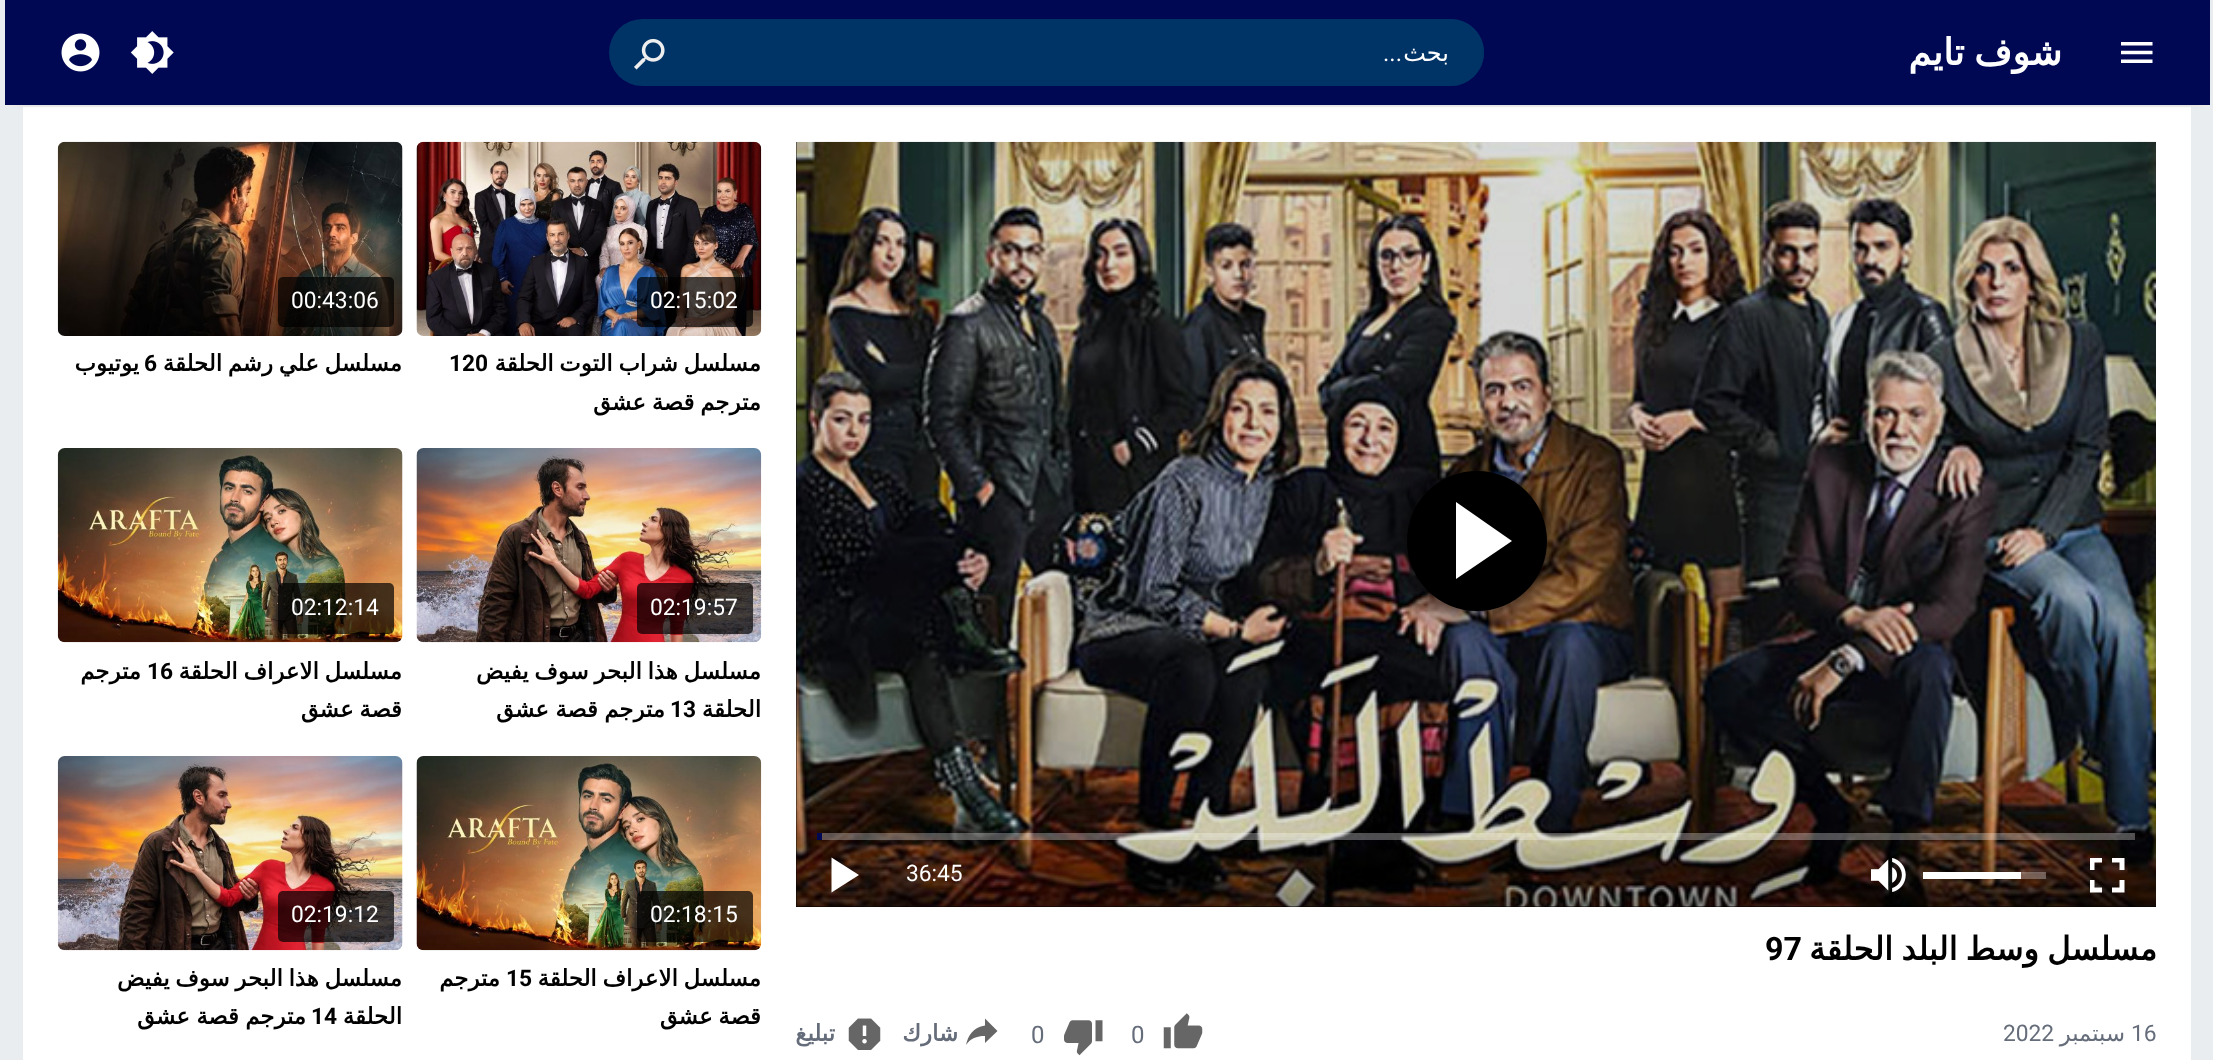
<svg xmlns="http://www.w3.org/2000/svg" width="2213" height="1060">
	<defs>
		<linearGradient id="g1" gradientUnits="userSpaceOnUse" x1="1476" y1="833" x2="1476" y2="910"><stop offset="0" stop-color="#000000" stop-opacity="0" /><stop offset="1" stop-color="#000000" stop-opacity="0.4" /></linearGradient>
		<clipPath id="clip1"><rect x="417" y="345" width="344" height="77" /></clipPath>
		<clipPath id="clip2"><rect x="58" y="345" width="345" height="38" /></clipPath>
		<clipPath id="clip3"><rect x="417" y="653" width="344" height="77" /></clipPath>
		<clipPath id="clip4"><rect x="417" y="959" width="344" height="77" /></clipPath>
		<clipPath id="clip5"><rect x="58" y="959" width="345" height="77" /></clipPath>
	</defs>
	<rect width="100%" height="100%" fill="#E9EDF0" />
	<rect x="5" y="105" width="2205" height="2" fill="#EEEEEE" />
	<rect x="23" y="107" width="2168" height="953" fill="#FFFFFF" />
	<rect x="14" y="12" width="2188" height="88" fill="#999999" filter="blur(4.5px)" />
	<rect x="5" y="0" width="2205" height="105" fill="#000854" />
	<image x="2121" y="42" width="32" height="21" href="assets/img1.png" />
	<text x="2062" y="65" word-spacing="-2" font-family="DejaVu Sans" font-size="36.75" font-weight="700" direction="rtl" fill="#FFFFFF">شوف تايم</text>
	<rect x="609" y="19" width="875" height="67" rx="33.5" fill="#003366" />
	<path d="M697 19H1450.5C1469 19 1484 34 1484 52.5C1484 71 1469 86 1450.5 86H697Z" fill="#003366" />
	<text x="1449" y="61" font-family="DejaVu Sans" font-size="24" direction="rtl" fill="#FFFFFF">بحث</text>
	<text x="1402" y="61" font-family="Roboto" font-size="24" direction="rtl" fill="#FFFFFF">...</text>
	<image x="634" y="38" width="31" height="32" href="assets/img2.png" />
	<image x="130" y="31" width="44" height="43" href="assets/img3.png" />
	<image x="61" y="33" width="39" height="39" href="assets/img4.png" />
	<rect x="796" y="142" width="1360" height="765" fill="#000000" />
	<image x="796" y="141" width="1360" height="766" href="assets/img5.png" />
	<rect x="1407" y="471" width="140" height="140" rx="70" fill="#000000" filter="blur(17.5px)" />
	<circle cx="1477" cy="541" r="70" fill="#000000" />
	<path d="M1456 579V502L1512 541Z" fill="#FFFFFF" />
	<rect x="796" y="837" width="1360" height="70" fill="url(#g1)" />
	<rect x="817" y="833" width="1318" height="7" fill="#FFFFFF" fill-opacity="0.3" />
	<rect x="817" y="833" width="5" height="7" fill="#000854" />
	<image x="2090" y="858" width="35" height="35" href="assets/img6.png" />
	<rect x="2021" y="872" width="25" height="7" fill="#FFFFFF" fill-opacity="0.3" />
	<rect x="1923" y="872" width="98" height="7" fill="#FFFFFF" />
	<image x="1871" y="858" width="35" height="34" href="assets/img7.png" />
	<text x="906" y="881" font-family="Roboto" font-size="22.75" fill="#FFFFFF">36:45</text>
	<path d="M831.5 857.5V892.5L859 875Z" fill="#FFFFFF" />
	<text x="2157" y="960" word-spacing="-2" font-family="DejaVu Sans" font-size="32.25" font-weight="700" direction="rtl" fill="#000000">مسلسل وسط البلد الحلقة</text>
	<text x="1765" y="960" font-family="Roboto" font-size="32.25" font-weight="700" fill="#000000">97</text>
	<text x="2131" y="1041" font-family="Roboto" font-size="22.75" fill="#656C7A">16</text>
	<text x="2125" y="1041" font-family="DejaVu Sans" font-size="22.75" direction="rtl" fill="#656C7A">سبتمبر</text>
	<text x="2003" y="1041" font-family="Roboto" font-size="22.75" fill="#656C7A">2022</text>
	<image x="1163" y="1013" width="40" height="36" href="assets/img8.png" />
	<text x="1131" y="1043" font-family="Roboto" font-size="24" fill="#656C7A">0</text>
	<image x="1064" y="1020" width="39" height="36" href="assets/img9.png" />
	<text x="1031" y="1043" font-family="Roboto" font-size="24" fill="#656C7A">0</text>
	<path d="M997.5 1031L985 1018.5V1025.5C973 1027 968 1036 966 1045C970.5 1038.5 976.5 1036 985 1036V1043Z" fill="#666666" />
	<text x="958" y="1041" font-family="DejaVu Sans" font-size="22.75" font-weight="700" direction="rtl" fill="#656C7A">شارك</text>
	<image x="848" y="1018" width="33" height="32" href="assets/img10.png" />
	<text x="835" y="1041" font-family="DejaVu Sans" font-size="22.75" font-weight="700" direction="rtl" fill="#656C7A">تبليغ</text>
	<image x="416" y="141" width="346" height="195" href="assets/img11.png" />
	<rect x="637" y="277" width="116" height="50" rx="5" fill="#000000" fill-opacity="0.7" />
	<text x="650" y="308" font-family="Roboto" font-size="22.75" fill="#FFFFFF">02:15:02</text>
	<g clip-path="url(#clip1)">
		<text x="761" y="371" word-spacing="-1.5" font-family="DejaVu Sans" font-size="22.75" font-weight="700" direction="rtl" fill="#000000">مسلسل شراب التوت الحلقة</text>
	</g>
	<text x="449" y="371" font-family="Roboto" font-size="22.75" font-weight="700" fill="#000000">120</text>
	<g clip-path="url(#clip1)">
		<text x="761" y="410" word-spacing="-1.5" font-family="DejaVu Sans" font-size="22.75" font-weight="700" direction="rtl" fill="#000000">مترجم قصة عشق</text>
	</g>
	<image x="57" y="141" width="346" height="195" href="assets/img12.png" />
	<rect x="278" y="277" width="116" height="50" rx="5" fill="#000000" fill-opacity="0.7" />
	<text x="291" y="308" font-family="Roboto" font-size="22.75" fill="#FFFFFF">00:43:06</text>
	<g clip-path="url(#clip2)">
		<text x="402" y="371" word-spacing="-1.5" font-family="DejaVu Sans" font-size="22.75" font-weight="700" direction="rtl" fill="#000000">مسلسل علي رشم الحلقة</text>
	</g>
	<text x="144" y="371" font-family="Roboto" font-size="22.75" font-weight="700" fill="#000000">6</text>
	<text x="139" y="371" font-family="DejaVu Sans" font-size="22.75" font-weight="700" direction="rtl" fill="#000000">يوتيوب</text>
	<image x="416" y="448" width="346" height="195" href="assets/img13.png" />
	<rect x="637" y="583" width="116" height="51" rx="5" fill="#000000" fill-opacity="0.7" />
	<text x="650" y="615" font-family="Roboto" font-size="22.75" fill="#FFFFFF">02:19:57</text>
	<g clip-path="url(#clip3)">
		<text x="761" y="679" word-spacing="-1.5" font-family="DejaVu Sans" font-size="22.75" font-weight="700" direction="rtl" fill="#000000">مسلسل هذا البحر سوف يفيض</text>
	</g>
	<text x="761" y="717" font-family="DejaVu Sans" font-size="22.75" font-weight="700" direction="rtl" fill="#000000">الحلقة</text>
	<text x="670" y="717" font-family="Roboto" font-size="22.75" font-weight="700" fill="#000000">13</text>
	<text x="665" y="717" word-spacing="-1" font-family="DejaVu Sans" font-size="22.75" font-weight="700" direction="rtl" fill="#000000">مترجم قصة عشق</text>
	<image x="57" y="448" width="346" height="195" href="assets/img14.png" />
	<rect x="278" y="583" width="116" height="51" rx="5" fill="#000000" fill-opacity="0.7" />
	<text x="291" y="615" font-family="Roboto" font-size="22.75" fill="#FFFFFF">02:12:14</text>
	<text x="402" y="679" word-spacing="-1.5" font-family="DejaVu Sans" font-size="22.75" font-weight="700" direction="rtl" fill="#000000">مسلسل الاعراف الحلقة</text>
	<text x="147" y="679" font-family="Roboto" font-size="22.75" font-weight="700" fill="#000000">16</text>
	<g font-family="DejaVu Sans" font-size="22.75" font-weight="700" direction="rtl" fill="#000000">
		<text x="141" y="679">مترجم</text>
		<text x="402" y="717" word-spacing="-1.5">قصة عشق</text>
	</g>
	<image x="416" y="756" width="346" height="195" href="assets/img15.png" />
	<rect x="637" y="891" width="116" height="51" rx="5" fill="#000000" fill-opacity="0.7" />
	<text x="650" y="922" font-family="Roboto" font-size="22.75" fill="#FFFFFF">02:18:15</text>
	<g clip-path="url(#clip4)">
		<text x="761" y="986" word-spacing="-1.5" font-family="DejaVu Sans" font-size="22.75" font-weight="700" direction="rtl" fill="#000000">مسلسل الاعراف الحلقة</text>
	</g>
	<text x="506" y="986" font-family="Roboto" font-size="22.75" font-weight="700" fill="#000000">15</text>
	<g font-family="DejaVu Sans" font-size="22.75" font-weight="700" direction="rtl" fill="#000000">
		<text x="500" y="986">مترجم</text>
		<text x="761" y="1024" word-spacing="-1.5">قصة عشق</text>
	</g>
	<image x="57" y="756" width="346" height="195" href="assets/img16.png" />
	<rect x="278" y="891" width="116" height="51" rx="5" fill="#000000" fill-opacity="0.7" />
	<text x="291" y="922" font-family="Roboto" font-size="22.75" fill="#FFFFFF">02:19:12</text>
	<g clip-path="url(#clip5)">
		<text x="402" y="986" word-spacing="-1.5" font-family="DejaVu Sans" font-size="22.75" font-weight="700" direction="rtl" fill="#000000">مسلسل هذا البحر سوف يفيض</text>
	</g>
	<text x="402" y="1024" font-family="DejaVu Sans" font-size="22.75" font-weight="700" direction="rtl" fill="#000000">الحلقة</text>
	<text x="311" y="1024" font-family="Roboto" font-size="22.75" font-weight="700" fill="#000000">14</text>
	<text x="306" y="1024" word-spacing="-1" font-family="DejaVu Sans" font-size="22.75" font-weight="700" direction="rtl" fill="#000000">مترجم قصة عشق</text>
</svg>
